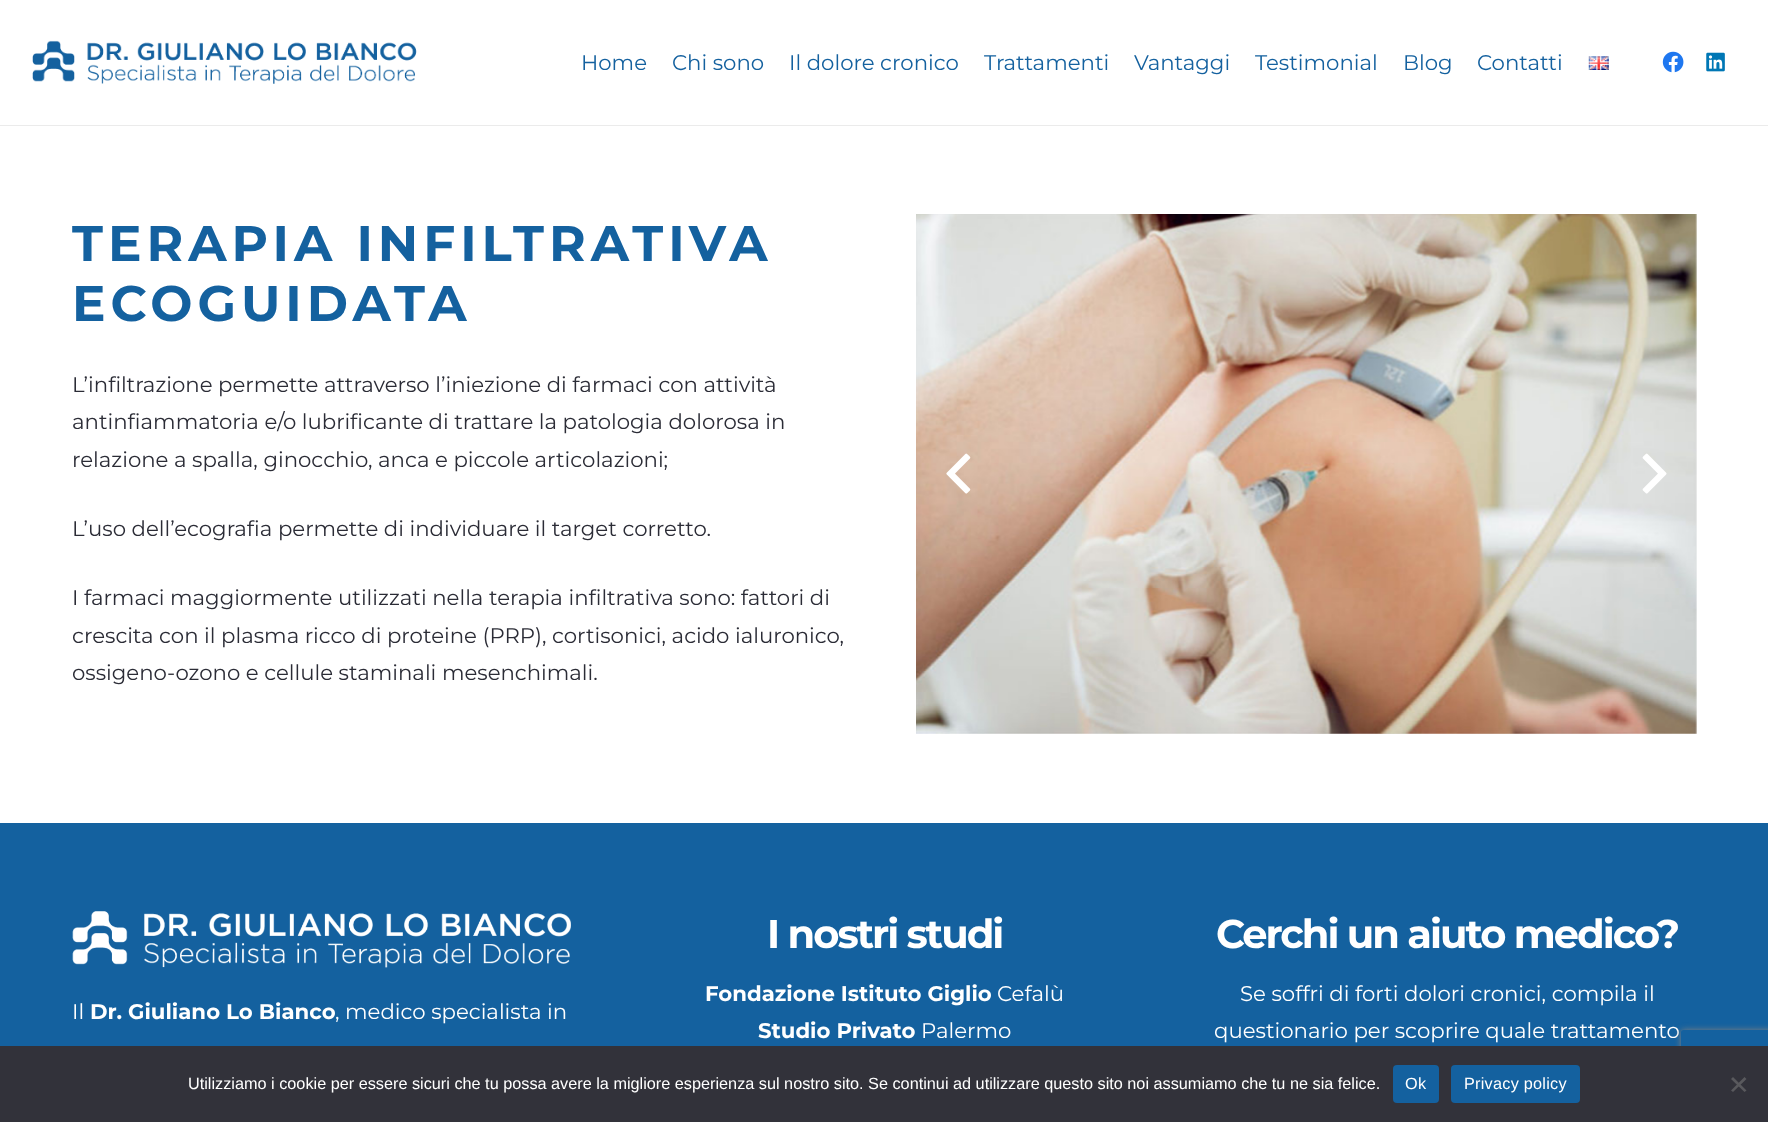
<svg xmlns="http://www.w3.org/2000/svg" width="1768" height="1122">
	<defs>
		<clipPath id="clip1"><path d="M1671 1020H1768V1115H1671ZM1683.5 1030H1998.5C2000 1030 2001 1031 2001 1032.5V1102.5C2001 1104 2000 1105 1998.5 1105H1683.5C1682 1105 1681 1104 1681 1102.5V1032.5C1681 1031 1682 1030 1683.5 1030Z" clip-rule="evenodd" /></clipPath>
	</defs>
	<rect width="100%" height="100%" fill="#FFFFFF" />
	<path d="M0 125V126H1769V1V125Z" fill="#EBEBEB" />
	<image x="32" y="40" width="385" height="44" href="assets/img1.png" />
	<g font-family="Montserrat" font-size="21.25" fill="#14619F">
		<text x="581" y="70">Home</text>
		<text x="672" y="70">Chi sono</text>
		<text x="789" y="70">Il dolore cronico</text>
		<text x="984" y="70">Trattamenti</text>
		<text x="1134" y="70">Vantaggi</text>
		<text x="1255" y="70">Testimonial</text>
		<text x="1403" y="70">Blog</text>
		<text x="1477" y="70">Contatti</text>
	</g>
	<image x="1588" y="56" width="21" height="14" href="assets/img2.png" />
	<image x="1662" y="51" width="22" height="22" href="assets/img3.png" />
	<image x="1706" y="52" width="19" height="20" href="assets/img4.png" />
	<g font-family="Montserrat" font-size="50" font-weight="700" letter-spacing="5" fill="#14619F">
		<text x="72" y="261">TERAPIA INFILTRATIVA</text>
		<text x="72" y="321">ECOGUIDATA</text>
	</g>
	<g font-family="Montserrat" font-size="21.25" fill="#2B2C36">
		<text x="72" y="392">L’infiltrazione permette attraverso l’iniezione di farmaci con attività</text>
		<text x="72" y="429">antinfiammatoria e/o lubrificante di trattare la patologia dolorosa in</text>
		<text x="72" y="467">relazione a spalla, ginocchio, anca e piccole articolazioni;</text>
		<text x="72" y="536">L’uso dell’ecografia permette di individuare il target corretto.</text>
		<text x="72" y="605">I farmaci maggiormente utilizzati nella terapia infiltrativa sono: fattori di</text>
		<text x="72" y="643">crescita con il plasma ricco di proteine (PRP), cortisonici, acido ialuronico,</text>
		<text x="72" y="680">ossigeno-ozono e cellule staminali mesenchimali.</text>
	</g>
	<image x="916" y="214" width="781" height="520" href="assets/img5.png" />
	<image x="946" y="453" width="25" height="41" href="assets/img6.png" />
	<image x="1642" y="453" width="25" height="41" href="assets/img7.png" />
	<rect x="0" y="823" width="1768" height="223" fill="#14619F" />
	<image x="72" y="911" width="499" height="57" href="assets/img8.png" />
	<text x="72" y="1019" font-family="Montserrat" font-size="21.25" fill="#FFFFFF">Il</text>
	<text x="90" y="1019" font-family="Montserrat" font-size="21.25" font-weight="700" fill="#FFFFFF">Dr. Giuliano Lo Bianco</text>
	<text x="335" y="1019" font-family="Montserrat" font-size="21.25" fill="#FFFFFF">, medico specialista in</text>
	<text x="767" y="948" font-family="Montserrat" font-size="40" font-weight="700" letter-spacing="-2" fill="#FFFFFF">I nostri studi</text>
	<text x="705" y="1001" font-family="Montserrat" font-size="21.25" font-weight="700" fill="#FFFFFF">Fondazione Istituto Giglio</text>
	<text x="997" y="1001" font-family="Montserrat" font-size="21.25" fill="#FFFFFF">Cefalù</text>
	<text x="758" y="1038" font-family="Montserrat" font-size="21.25" font-weight="700" fill="#FFFFFF">Studio Privato</text>
	<text x="921" y="1038" font-family="Montserrat" font-size="21.25" fill="#FFFFFF">Palermo</text>
	<text x="1216" y="948" font-family="Montserrat" font-size="40" font-weight="700" letter-spacing="-2" fill="#FFFFFF">Cerchi un aiuto medico?</text>
	<g font-family="Montserrat" font-size="21.25" fill="#FFFFFF">
		<text x="1240" y="1001">Se soffri di forti dolori cronici, compila il</text>
		<text x="1214" y="1038">questionario per scoprire quale trattamento</text>
	</g>
	<g clip-path="url(#clip1)">
		<rect x="1681" y="1030" width="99" height="75" rx="2.5" fill="#808080" filter="blur(3px)" />
	</g>
	<rect x="0" y="1046" width="1768" height="76" fill="#32323A" />
	<text x="188" y="1089" font-family="Liberation Sans" font-size="16.25" fill="#FFFFFF">Utilizziamo i cookie per essere sicuri che tu possa avere la migliore esperienza sul nostro sito. Se continui ad utilizzare questo sito noi assumiamo che tu ne sia felice.</text>
	<rect x="1393" y="1065" width="46" height="38" rx="4" fill="#14619F" />
	<text x="1405" y="1089" font-family="Liberation Sans" font-size="16.25" letter-spacing="0.25" fill="#FFFFFF">Ok</text>
	<rect x="1451" y="1065" width="129" height="38" rx="4" fill="#14619F" />
	<text x="1464" y="1089" font-family="Liberation Sans" font-size="16.25" letter-spacing="0.25" fill="#FFFFFF">Privacy policy</text>
	<path d="M1744.5 1077L1746.5 1079L1733 1092L1731 1090.5Z" fill="#59595D" />
	<path d="M1731 1079L1733 1077L1746.5 1090.5L1744.5 1092Z" fill="#59595D" />
</svg>
